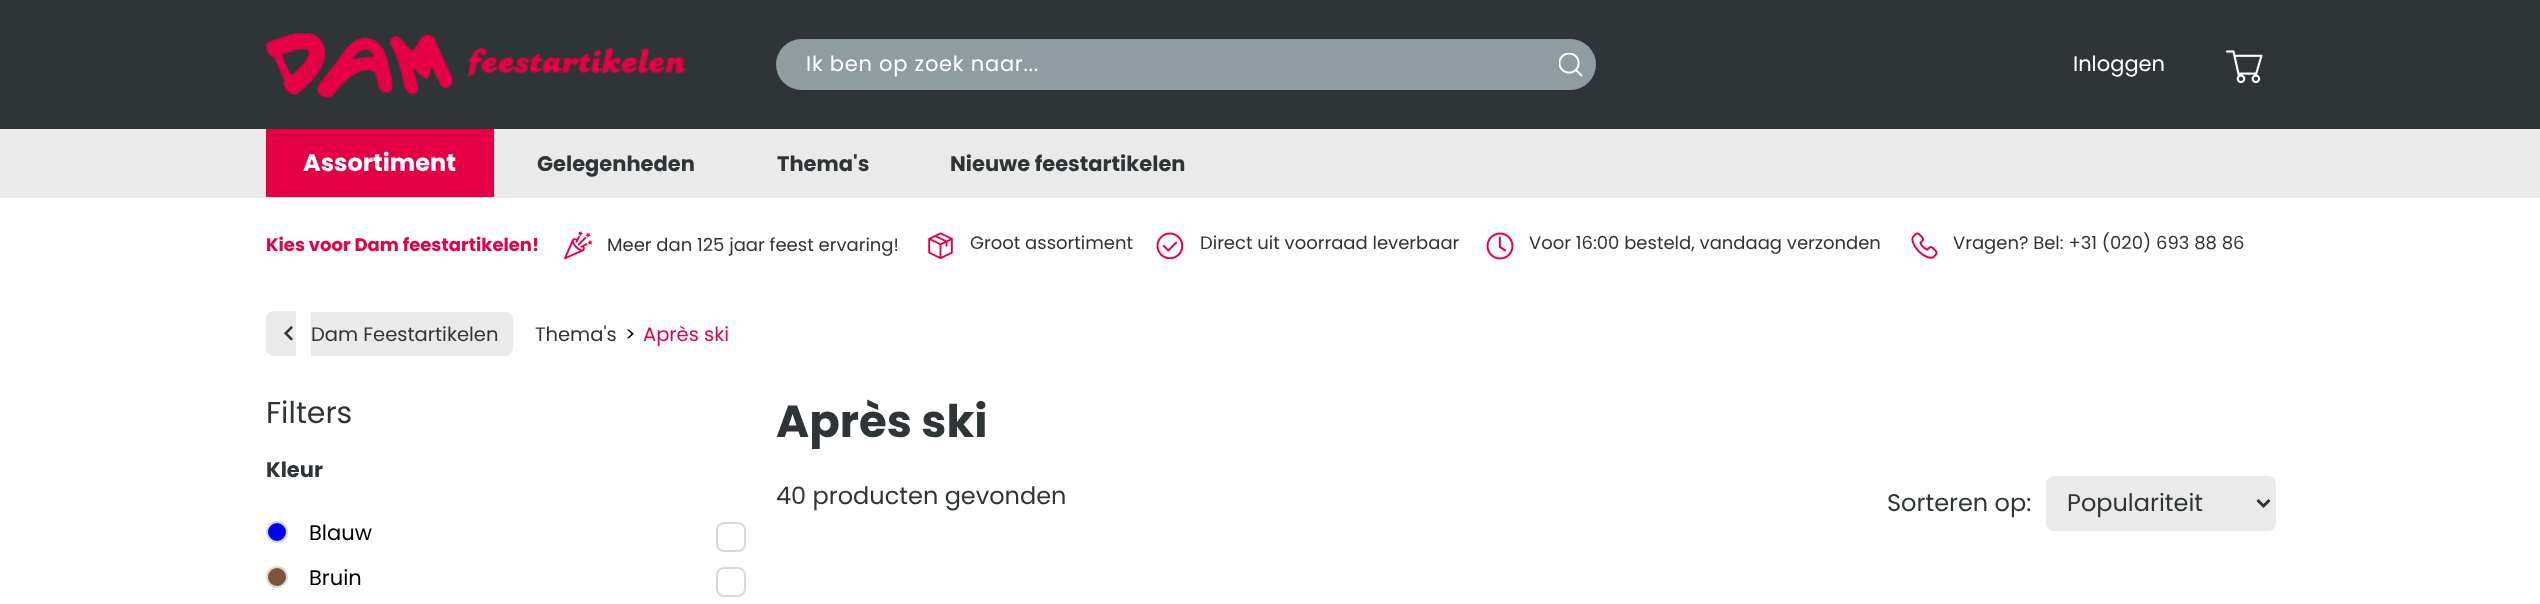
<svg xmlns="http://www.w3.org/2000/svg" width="2540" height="604">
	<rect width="100%" height="100%" fill="#FFFFFF" />
	<rect x="0" y="0" width="2540" height="129" fill="#2F3436" />
	<image x="265" y="33" width="421" height="65" href="assets/img1.png" />
	<rect x="776" y="39" width="820" height="51" rx="25.5" fill="#919CA0" />
	<text x="806" y="71" font-family="Poppins" font-size="21" letter-spacing="0.75" fill="#FFFFFF">Ik ben op zoek naar...</text>
	<image x="1559" y="53" width="24" height="24" href="assets/img2.png" />
	<text x="2073" y="71" font-family="Poppins" font-size="21" fill="#FFFFFF">Inloggen</text>
	<image x="2226" y="50" width="37" height="34" href="assets/img3.png" />
	<rect x="0" y="129" width="2540" height="69" fill="#EAEAEB" />
	<rect x="266" y="129" width="228" height="68" fill="#E50046" />
	<text x="303" y="171" font-family="Poppins" font-size="24" font-weight="700" fill="#FFFFFF">Assortiment</text>
	<g font-family="Poppins" font-size="21" font-weight="700" fill="#2F3436">
		<text x="537" y="171">Gelegenheden</text>
		<text x="777" y="171">Thema's</text>
		<text x="950" y="171">Nieuwe feestartikelen</text>
	</g>
	<text x="266" y="251" font-family="Poppins" font-size="18" font-weight="700" fill="#E50046">Kies voor Dam feestartikelen!</text>
	<image x="564" y="231" width="29" height="29" href="assets/img4.png" />
	<text x="607" y="251" font-family="Poppins" font-size="18" fill="#2F3436">Meer dan 125 jaar feest ervaring!</text>
	<image x="928" y="232" width="25" height="27" href="assets/img5.png" />
	<text x="970" y="249" font-family="Poppins" font-size="18" fill="#2F3436">Groot assortiment</text>
	<image x="1156" y="232" width="28" height="28" href="assets/img6.png" />
	<text x="1200" y="249" font-family="Poppins" font-size="18" fill="#2F3436">Direct uit voorraad leverbaar</text>
	<image x="1486" y="232" width="28" height="28" href="assets/img7.png" />
	<text x="1529" y="249" font-family="Poppins" font-size="18" fill="#2F3436">Voor 16:00 besteld, vandaag verzonden</text>
	<image x="1911" y="232" width="27" height="27" href="assets/img8.png" />
	<text x="1953" y="249" font-family="Poppins" font-size="18" fill="#2F3436">Vragen? Bel: +31 (020) 693 88 86</text>
	<path d="M274 311H296V356H274C269.5 356 266 352.5 266 348V319C266 314.5 269.5 311 274 311Z" fill="#EAEAEB" />
	<path d="M311 312H505C509.5 312 513 315.5 513 320V348C513 352.5 509.5 356 505 356H311Z" fill="#EAEAEB" />
	<image x="284" y="326" width="9" height="15" href="assets/img9.png" />
	<g font-family="Poppins" font-size="19.5" fill="#2F3436">
		<text x="311" y="341">Dam Feestartikelen</text>
		<text x="535" y="341">Thema's</text>
	</g>
	<text x="625" y="341" font-family="Poppins" font-size="19.5" fill="#000000">&gt;</text>
	<text x="643" y="341" font-family="Poppins" font-size="19.5" fill="#E50046">Après ski</text>
	<text x="266" y="423" font-family="Poppins" font-size="30" fill="#2F3436">Filters</text>
	<text x="266" y="477" font-family="Poppins" font-size="21" font-weight="700" fill="#2F3436">Kleur</text>
	<circle cx="277" cy="532" r="10" fill="#0000FF" stroke="#D9D9D5" stroke-width="2" />
	<text x="309" y="540" font-family="Poppins" font-size="21" fill="#000000">Blauw</text>
	<rect x="717" y="523" width="28" height="28" rx="7" fill="none" stroke="#D9D9D5" stroke-width="2" />
	<circle cx="277" cy="577" r="10" fill="#79553D" stroke="#D9D9D5" stroke-width="2" />
	<text x="309" y="585" font-family="Poppins" font-size="21" fill="#000000">Bruin</text>
	<rect x="717" y="568" width="28" height="28" rx="7" fill="none" stroke="#D9D9D5" stroke-width="2" />
	<text x="776" y="437" font-family="Poppins" font-size="45" font-weight="700" fill="#2F3436">Après ski</text>
	<g font-family="Poppins" font-size="24" fill="#2F3436">
		<text x="776" y="504">40 producten gevonden</text>
		<text x="1887" y="511">Sorteren op:</text>
	</g>
	<rect x="2046" y="476" width="230" height="55" rx="8" fill="#EAEAEB" />
	<path d="M2257.5 500L2263.5 506L2269.5 500" fill="none" stroke="#2F3436" stroke-width="3" />
	<text x="2067" y="511" font-family="Poppins" font-size="24" fill="#2F3436">Populariteit</text>
</svg>
